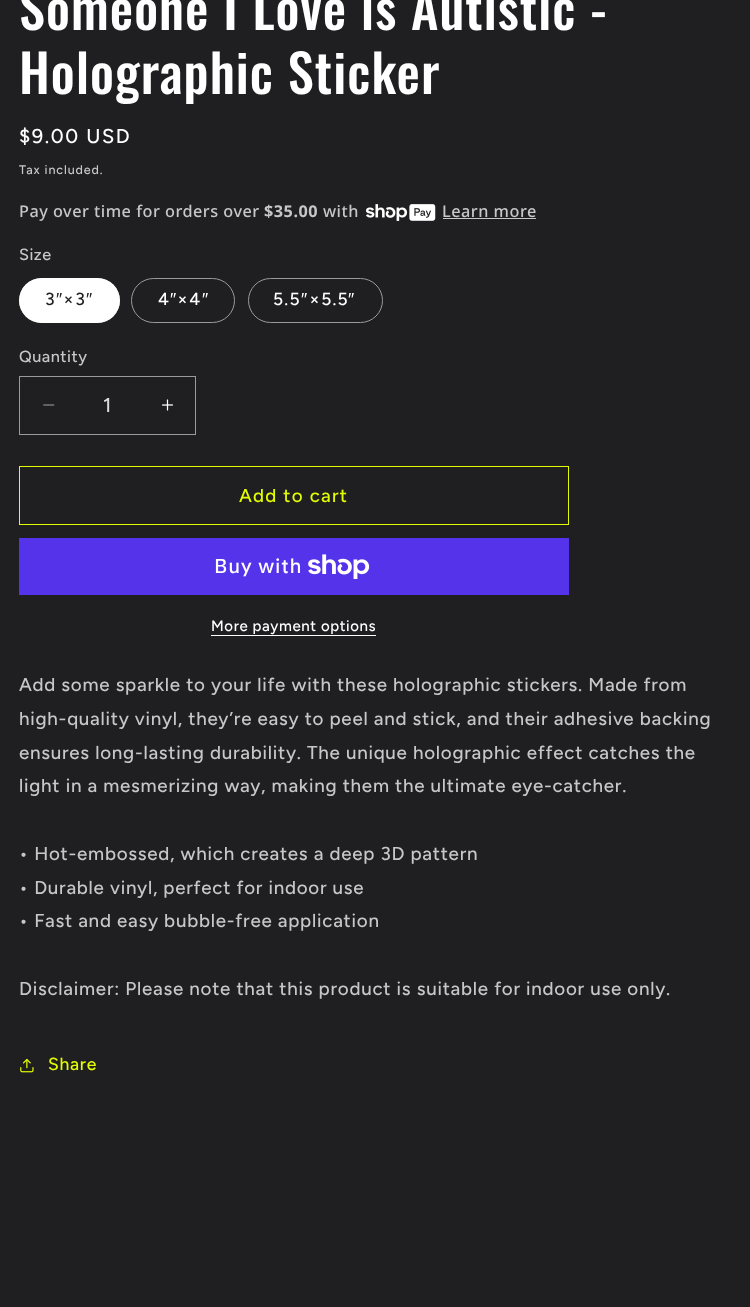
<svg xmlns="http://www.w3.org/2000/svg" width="750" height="1307">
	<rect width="100%" height="100%" fill="#1F1F21" />
	<g font-family="Oswald" font-size="52.5" font-weight="500" letter-spacing="1.05" fill="#FFFFFF">
		<text x="19" y="30">Someone I Love is Autistic -</text>
		<text x="19" y="94">Holographic Sticker</text>
	</g>
	<text x="19" y="143" font-family="Figtree" font-size="20" font-weight="500" letter-spacing="1.6" fill="#FFFFFF">$9.00 USD</text>
	<text x="19" y="174" font-family="Figtree" font-size="12.5" font-weight="500" letter-spacing="0.9" fill="#C7C7C8">Tax included.</text>
	<text x="19" y="217" font-family="Noto Sans" font-size="16.25" font-weight="500" letter-spacing="0.5" fill="#C7C7C8">Pay over time for orders over</text>
	<text x="264" y="217" font-family="Noto Sans" font-size="16.25" font-weight="700" letter-spacing="0.5" fill="#C7C7C8">$35.00</text>
	<text x="323" y="217" font-family="Noto Sans" font-size="16.25" font-weight="500" letter-spacing="0.5" fill="#C7C7C8">with</text>
	<image x="366" y="204" width="70" height="17" href="assets/img1.png" />
	<text x="442" y="217" font-family="Noto Sans" font-size="16.25" font-weight="500" letter-spacing="0.5" fill="#C7C7C8">Learn more</text>
	<rect x="443" y="218" width="93" height="1" fill="#C7C7C8" />
	<text x="19" y="260" font-family="Figtree" font-size="16.25" font-weight="500" letter-spacing="0.5" fill="#C7C7C8">Size</text>
	<rect x="19" y="278" width="101" height="45" rx="22.5" fill="#FFFFFF" />
	<rect x="19.5" y="278.5" width="100" height="44" rx="22" fill="none" stroke="#FFFFFF" stroke-opacity="0.55" />
	<text x="45" y="305" font-family="Figtree" font-size="17.5" font-weight="500" letter-spacing="1.25" fill="#1F1F21">3</text>
	<text x="56" y="305" font-family="Liberation Sans" font-size="17.5" letter-spacing="1.25" fill="#1F1F21">″</text>
	<text x="63" y="305" font-family="Figtree" font-size="17.5" font-weight="500" letter-spacing="1.25" fill="#1F1F21">×3</text>
	<text x="86" y="305" font-family="Liberation Sans" font-size="17.5" letter-spacing="1.25" fill="#1F1F21">″</text>
	<rect x="131.5" y="278.5" width="103" height="44" rx="22" fill="none" stroke="#9A9A9B" />
	<text x="158" y="305" font-family="Figtree" font-size="17.5" font-weight="500" letter-spacing="1.25" fill="#FFFFFF">4</text>
	<text x="170" y="305" font-family="Liberation Sans" font-size="17.5" letter-spacing="1.25" fill="#FFFFFF">″</text>
	<text x="177" y="305" font-family="Figtree" font-size="17.5" font-weight="500" letter-spacing="1.25" fill="#FFFFFF">×4</text>
	<text x="202" y="305" font-family="Liberation Sans" font-size="17.5" letter-spacing="1.25" fill="#FFFFFF">″</text>
	<rect x="248.5" y="278.5" width="134" height="44" rx="22" fill="none" stroke="#9A9A9B" />
	<text x="273" y="305" font-family="Figtree" font-size="17.5" font-weight="500" letter-spacing="1.25" fill="#FFFFFF">5.5</text>
	<text x="301" y="305" font-family="Liberation Sans" font-size="17.5" letter-spacing="1.25" fill="#FFFFFF">″</text>
	<text x="309" y="305" font-family="Figtree" font-size="17.5" font-weight="500" letter-spacing="1.25" fill="#FFFFFF">×5.5</text>
	<text x="348" y="305" font-family="Liberation Sans" font-size="17.5" letter-spacing="1.25" fill="#FFFFFF">″</text>
	<text x="19" y="362" font-family="Figtree" font-size="16.25" font-weight="500" letter-spacing="0.5" fill="#C7C7C8">Quantity</text>
	<image x="43" y="404" width="12" height="2" href="assets/img2.png" />
	<image x="162" y="399" width="12" height="12" href="assets/img3.png" />
	<rect x="19.5" y="376.5" width="176" height="58" fill="none" stroke="#9A9A9B" />
	<text x="103" y="412" font-family="Figtree" font-size="20" font-weight="500" fill="#DDDDDE">1</text>
	<rect x="19.5" y="466.5" width="549" height="58" fill="none" stroke="#E3FC02" />
	<text x="239" y="502" font-family="Figtree" font-size="18.75" font-weight="500" letter-spacing="1.25" fill="#E3FC02">Add to cart</text>
	<rect x="19" y="538" width="550" height="57" fill="#5433EB" />
	<text x="214" y="573" font-family="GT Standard" font-size="20" font-weight="500" letter-spacing="0.75" fill="#FFFFFF">Buy with</text>
	<image x="308" y="554" width="62" height="25" href="assets/img4.png" />
	<text x="211" y="631" font-family="Figtree" font-size="15" font-weight="500" letter-spacing="0.6" fill="#FFFFFF">More payment options</text>
	<rect x="211" y="635" width="165" height="1" fill="#FFFFFF" />
	<g font-family="Figtree" font-size="18.75" font-weight="500" letter-spacing="0.75" fill="#C7C7C8">
		<text x="19" y="691">Add some sparkle to your life with these holographic stickers. Made from</text>
		<text x="19" y="725">high-quality vinyl, they’re easy to peel and stick, and their adhesive backing</text>
		<text x="19" y="759">ensures long-lasting durability. The unique holographic effect catches the</text>
		<text x="19" y="792">light in a mesmerizing way, making them the ultimate eye-catcher.</text>
		<text x="19" y="860">• Hot-embossed, which creates a deep 3D pattern</text>
		<text x="19" y="894">• Durable vinyl, perfect for indoor use</text>
		<text x="19" y="927">• Fast and easy bubble-free application</text>
		<text x="19" y="995">Disclaimer: Please note that this product is suitable for indoor use only.</text>
	</g>
	<image x="20" y="1058" width="14" height="15" href="assets/img5.png" />
	<text x="48" y="1070" font-family="Figtree" font-size="17.5" font-weight="500" letter-spacing="0.75" fill="#E3FC02">Share</text>
</svg>
